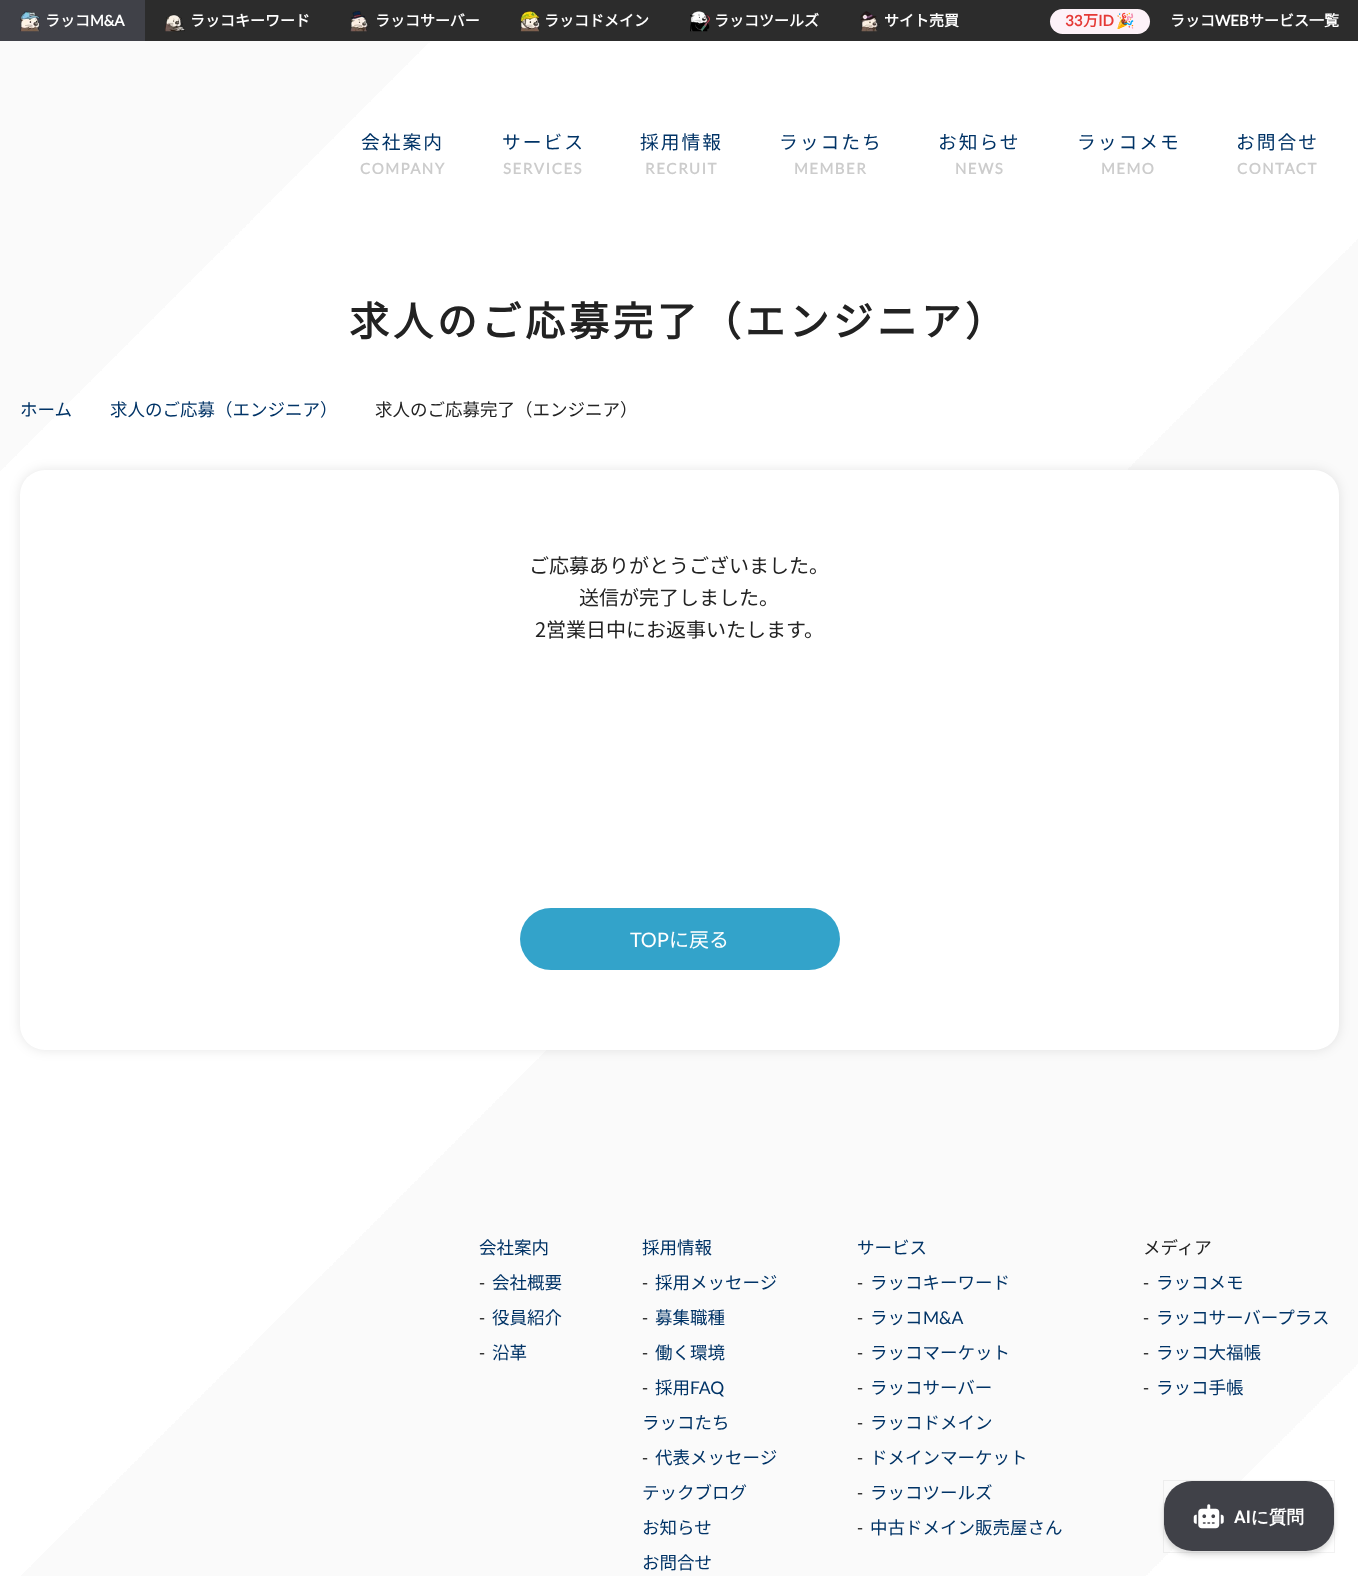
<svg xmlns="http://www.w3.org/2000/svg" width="1358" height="1576">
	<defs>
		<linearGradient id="g1" gradientUnits="userSpaceOnUse" x1="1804" y1="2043" x2="-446" y2="-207"><stop offset="0.25" stop-color="#FFFFFF" /><stop offset="0.25" stop-color="#FAFAFA" /><stop offset="0.5" stop-color="#FAFAFA" /><stop offset="0.5" stop-color="#FFFFFF" /><stop offset="0.75" stop-color="#FFFFFF" /><stop offset="0.75" stop-color="#FAFAFA" /></linearGradient>
	</defs>
	<rect width="100%" height="100%" fill="#FFFFFF" />
	<rect x="0" y="41" width="1358" height="1535" fill="url(#g1)" />
	<rect x="145" y="0" width="1213" height="41" fill="#2C2C2C" />
	<rect x="0" y="0" width="145" height="41" fill="#404148" />
	<image x="20" y="11" width="20" height="21" href="assets/img1.png" />
	<text x="45" y="26" font-family="Noto Sans JP" font-size="15" font-weight="700" fill="#FFFFFF">ラッコ</text>
	<text x="90" y="26" font-family="Lato" font-size="15" font-weight="700" fill="#FFFFFF">M&amp;A</text>
	<image x="165" y="14" width="20" height="18" href="assets/img2.png" />
	<text x="190" y="26" font-family="Noto Sans JP" font-size="15" font-weight="700" fill="#FFFFFF">ラッコキーワード</text>
	<image x="350" y="11" width="20" height="21" href="assets/img3.png" />
	<text x="375" y="26" font-family="Noto Sans JP" font-size="15" font-weight="700" fill="#FFFFFF">ラッコサーバー</text>
	<image x="520" y="11" width="20" height="21" href="assets/img4.png" />
	<text x="544" y="26" font-family="Noto Sans JP" font-size="15" font-weight="700" fill="#FFFFFF">ラッコドメイン</text>
	<image x="690" y="11" width="20" height="21" href="assets/img5.png" />
	<text x="714" y="26" font-family="Noto Sans JP" font-size="15" font-weight="700" fill="#FFFFFF">ラッコツールズ</text>
	<image x="860" y="11" width="20" height="21" href="assets/img6.png" />
	<text x="884" y="26" font-family="Noto Sans JP" font-size="15" font-weight="700" fill="#FFFFFF">サイト売買</text>
	<rect x="1050" y="9" width="100" height="25" rx="12.5" fill="#FDF2F8" />
	<text x="1065" y="26" font-family="Lato" font-size="15" font-weight="700" fill="#E53935">33</text>
	<text x="1083" y="26" font-family="Noto Sans JP" font-size="15" font-weight="700" fill="#E53935">万</text>
	<text x="1098" y="26" font-family="Lato" font-size="15" font-weight="700" fill="#E53935">ID</text>
	<text x="1116" y="26" font-family="Noto Color Emoji" font-size="15" font-weight="700" fill="#E53935">🎉</text>
	<text x="1170" y="26" font-family="Noto Sans JP" font-size="15" font-weight="700" fill="#FFFFFF">ラッコ</text>
	<text x="1215" y="26" font-family="Lato" font-size="15" font-weight="700" fill="#FFFFFF">WEB</text>
	<text x="1249" y="26" font-family="Noto Sans JP" font-size="15" font-weight="700" fill="#FFFFFF">サービス一覧</text>
	<text x="361" y="149" font-family="Noto Sans JP" font-size="18.75" font-weight="100" letter-spacing="2" fill="#003366">会社案内</text>
	<text x="360" y="174" font-family="Lato" font-size="15" font-weight="700" letter-spacing="1.5" fill="#CCCCCC">COMPANY</text>
	<text x="502" y="149" font-family="Noto Sans JP" font-size="18.75" font-weight="100" letter-spacing="2" fill="#003366">サービス</text>
	<text x="503" y="174" font-family="Lato" font-size="15" font-weight="700" letter-spacing="1.5" fill="#CCCCCC">SERVICES</text>
	<text x="640" y="149" font-family="Noto Sans JP" font-size="18.75" font-weight="100" letter-spacing="2" fill="#003366">採用情報</text>
	<text x="645" y="174" font-family="Lato" font-size="15" font-weight="700" letter-spacing="1.5" fill="#CCCCCC">RECRUIT</text>
	<text x="779" y="149" font-family="Noto Sans JP" font-size="18.75" font-weight="100" letter-spacing="2" fill="#003366">ラッコたち</text>
	<text x="794" y="174" font-family="Lato" font-size="15" font-weight="700" letter-spacing="1.5" fill="#CCCCCC">MEMBER</text>
	<text x="938" y="149" font-family="Noto Sans JP" font-size="18.75" font-weight="100" letter-spacing="2" fill="#003366">お知らせ</text>
	<text x="955" y="174" font-family="Lato" font-size="15" font-weight="700" letter-spacing="1.5" fill="#CCCCCC">NEWS</text>
	<text x="1077" y="149" font-family="Noto Sans JP" font-size="18.75" font-weight="100" letter-spacing="2" fill="#003366">ラッコメモ</text>
	<text x="1101" y="174" font-family="Lato" font-size="15" font-weight="700" letter-spacing="1.5" fill="#CCCCCC">MEMO</text>
	<text x="1236" y="149" font-family="Noto Sans JP" font-size="18.75" font-weight="100" letter-spacing="2" fill="#003366">お問合せ</text>
	<text x="1237" y="174" font-family="Lato" font-size="15" font-weight="700" letter-spacing="1.5" fill="#CCCCCC">CONTACT</text>
	<text x="349" y="336" font-family="Noto Sans JP" font-size="40" font-weight="700" letter-spacing="4" fill="#222222">求人のご応募完了（エンジニア）</text>
	<g font-family="Noto Sans JP" font-size="17.5" font-weight="100" fill="#003366">
		<text x="20" y="416">ホーム</text>
		<text x="110" y="416">求人のご応募（エンジニア）</text>
	</g>
	<text x="375" y="416" font-family="Noto Sans JP" font-size="17.5" font-weight="100" fill="#222222">求人のご応募完了（エンジニア）</text>
	<rect x="20" y="470" width="1319" height="580" rx="25" fill="#000000" fill-opacity="0.1" filter="blur(6px)" />
	<rect x="20" y="470" width="1319" height="580" rx="25" fill="#FFFFFF" />
	<g font-family="Noto Sans JP" font-size="20" font-weight="100" fill="#222222">
		<text x="529" y="573">ご応募ありがとうございました。</text>
		<text x="579" y="605">送信が完了しました。</text>
		<text x="535" y="637">2営業日中にお返事いたします。</text>
	</g>
	<rect x="520" y="908" width="320" height="62" rx="31" fill="#33A3CA" />
	<text x="630" y="947" font-family="Lato" font-size="20" fill="#FFFFFF">TOP</text>
	<text x="669" y="947" font-family="Noto Sans JP" font-size="20" font-weight="100" fill="#FFFFFF">に戻る</text>
	<text x="479" y="1254" font-family="Noto Sans JP" font-size="17.5" font-weight="100" fill="#003366">会社案内</text>
	<text x="479" y="1289" font-family="Lato" font-size="17.5" fill="#222222">-</text>
	<text x="492" y="1289" font-family="Noto Sans JP" font-size="17.5" font-weight="100" fill="#003366">会社概要</text>
	<text x="479" y="1324" font-family="Lato" font-size="17.5" fill="#222222">-</text>
	<text x="492" y="1324" font-family="Noto Sans JP" font-size="17.5" font-weight="100" fill="#003366">役員紹介</text>
	<text x="479" y="1359" font-family="Lato" font-size="17.5" fill="#222222">-</text>
	<g font-family="Noto Sans JP" font-size="17.5" font-weight="100" fill="#003366">
		<text x="492" y="1359">沿革</text>
		<text x="642" y="1254">採用情報</text>
	</g>
	<text x="642" y="1289" font-family="Lato" font-size="17.5" fill="#222222">-</text>
	<text x="655" y="1289" font-family="Noto Sans JP" font-size="17.5" font-weight="100" fill="#003366">採用メッセージ</text>
	<text x="642" y="1324" font-family="Lato" font-size="17.5" fill="#222222">-</text>
	<text x="655" y="1324" font-family="Noto Sans JP" font-size="17.5" font-weight="100" fill="#003366">募集職種</text>
	<text x="642" y="1359" font-family="Lato" font-size="17.5" fill="#222222">-</text>
	<text x="655" y="1359" font-family="Noto Sans JP" font-size="17.5" font-weight="100" fill="#003366">働く環境</text>
	<text x="642" y="1394" font-family="Lato" font-size="17.5" fill="#222222">-</text>
	<text x="655" y="1394" font-family="Noto Sans JP" font-size="17.5" font-weight="100" fill="#003366">採用</text>
	<text x="690" y="1394" font-family="Lato" font-size="17.5" fill="#003366">FAQ</text>
	<text x="642" y="1429" font-family="Noto Sans JP" font-size="17.5" font-weight="100" fill="#003366">ラッコたち</text>
	<text x="642" y="1464" font-family="Lato" font-size="17.5" fill="#222222">-</text>
	<g font-family="Noto Sans JP" font-size="17.5" font-weight="100" fill="#003366">
		<text x="655" y="1464">代表メッセージ</text>
		<text x="642" y="1499">テックブログ</text>
		<text x="642" y="1534">お知らせ</text>
		<text x="642" y="1569">お問合せ</text>
		<text x="857" y="1254">サービス</text>
	</g>
	<text x="857" y="1289" font-family="Lato" font-size="17.5" fill="#222222">-</text>
	<text x="870" y="1289" font-family="Noto Sans JP" font-size="17.5" font-weight="100" fill="#003366">ラッコキーワード</text>
	<text x="857" y="1324" font-family="Lato" font-size="17.5" fill="#222222">-</text>
	<text x="870" y="1324" font-family="Noto Sans JP" font-size="17.5" font-weight="100" fill="#003366">ラッコ</text>
	<text x="923" y="1324" font-family="Lato" font-size="17.5" fill="#003366">M&amp;A</text>
	<text x="857" y="1359" font-family="Lato" font-size="17.5" fill="#222222">-</text>
	<text x="870" y="1359" font-family="Noto Sans JP" font-size="17.5" font-weight="100" fill="#003366">ラッコマーケット</text>
	<text x="857" y="1394" font-family="Lato" font-size="17.5" fill="#222222">-</text>
	<text x="870" y="1394" font-family="Noto Sans JP" font-size="17.5" font-weight="100" fill="#003366">ラッコサーバー</text>
	<text x="857" y="1429" font-family="Lato" font-size="17.5" fill="#222222">-</text>
	<text x="870" y="1429" font-family="Noto Sans JP" font-size="17.5" font-weight="100" fill="#003366">ラッコドメイン</text>
	<text x="857" y="1464" font-family="Lato" font-size="17.5" fill="#222222">-</text>
	<text x="870" y="1464" font-family="Noto Sans JP" font-size="17.5" font-weight="100" fill="#003366">ドメインマーケット</text>
	<text x="857" y="1499" font-family="Lato" font-size="17.5" fill="#222222">-</text>
	<text x="870" y="1499" font-family="Noto Sans JP" font-size="17.5" font-weight="100" fill="#003366">ラッコツールズ</text>
	<text x="857" y="1534" font-family="Lato" font-size="17.5" fill="#222222">-</text>
	<text x="870" y="1534" font-family="Noto Sans JP" font-size="17.5" font-weight="100" fill="#003366">中古ドメイン販売屋さん</text>
	<text x="1143" y="1254" font-family="Noto Sans JP" font-size="17.5" font-weight="100" fill="#222222">メディア</text>
	<text x="1143" y="1289" font-family="Lato" font-size="17.5" fill="#222222">-</text>
	<text x="1156" y="1289" font-family="Noto Sans JP" font-size="17.5" font-weight="100" fill="#003366">ラッコメモ</text>
	<text x="1143" y="1324" font-family="Lato" font-size="17.5" fill="#222222">-</text>
	<text x="1156" y="1324" font-family="Noto Sans JP" font-size="17.5" font-weight="100" fill="#003366">ラッコサーバープラス</text>
	<text x="1143" y="1359" font-family="Lato" font-size="17.5" fill="#222222">-</text>
	<text x="1156" y="1359" font-family="Noto Sans JP" font-size="17.5" font-weight="100" fill="#003366">ラッコ大福帳</text>
	<text x="1143" y="1394" font-family="Lato" font-size="17.5" fill="#222222">-</text>
	<text x="1156" y="1394" font-family="Noto Sans JP" font-size="17.5" font-weight="100" fill="#003366">ラッコ手帳</text>
	<rect x="1164" y="1485" width="170" height="70" rx="28" fill="#000000" fill-opacity="0.05" filter="blur(2px)" />
	<rect x="1164" y="1485" width="170" height="70" rx="28" fill="#000000" fill-opacity="0.1" filter="blur(3px)" />
	<rect x="1163.5" y="1480.5" width="171" height="72" fill="none" stroke="#000000" stroke-opacity="0.05" />
	<rect x="1164" y="1481" width="170" height="70" rx="28" fill="#404148" />
	<image x="1193" y="1504" width="31" height="25" href="assets/img7.png" />
	<text x="1234" y="1523" font-family="Roboto" font-size="17.5" font-weight="600" fill="#FFFFFF">AI</text>
	<text x="1251" y="1523" font-family="WenQuanYi Zen Hei" font-size="17.5" font-weight="700" fill="#FFFFFF">に質問</text>
</svg>
